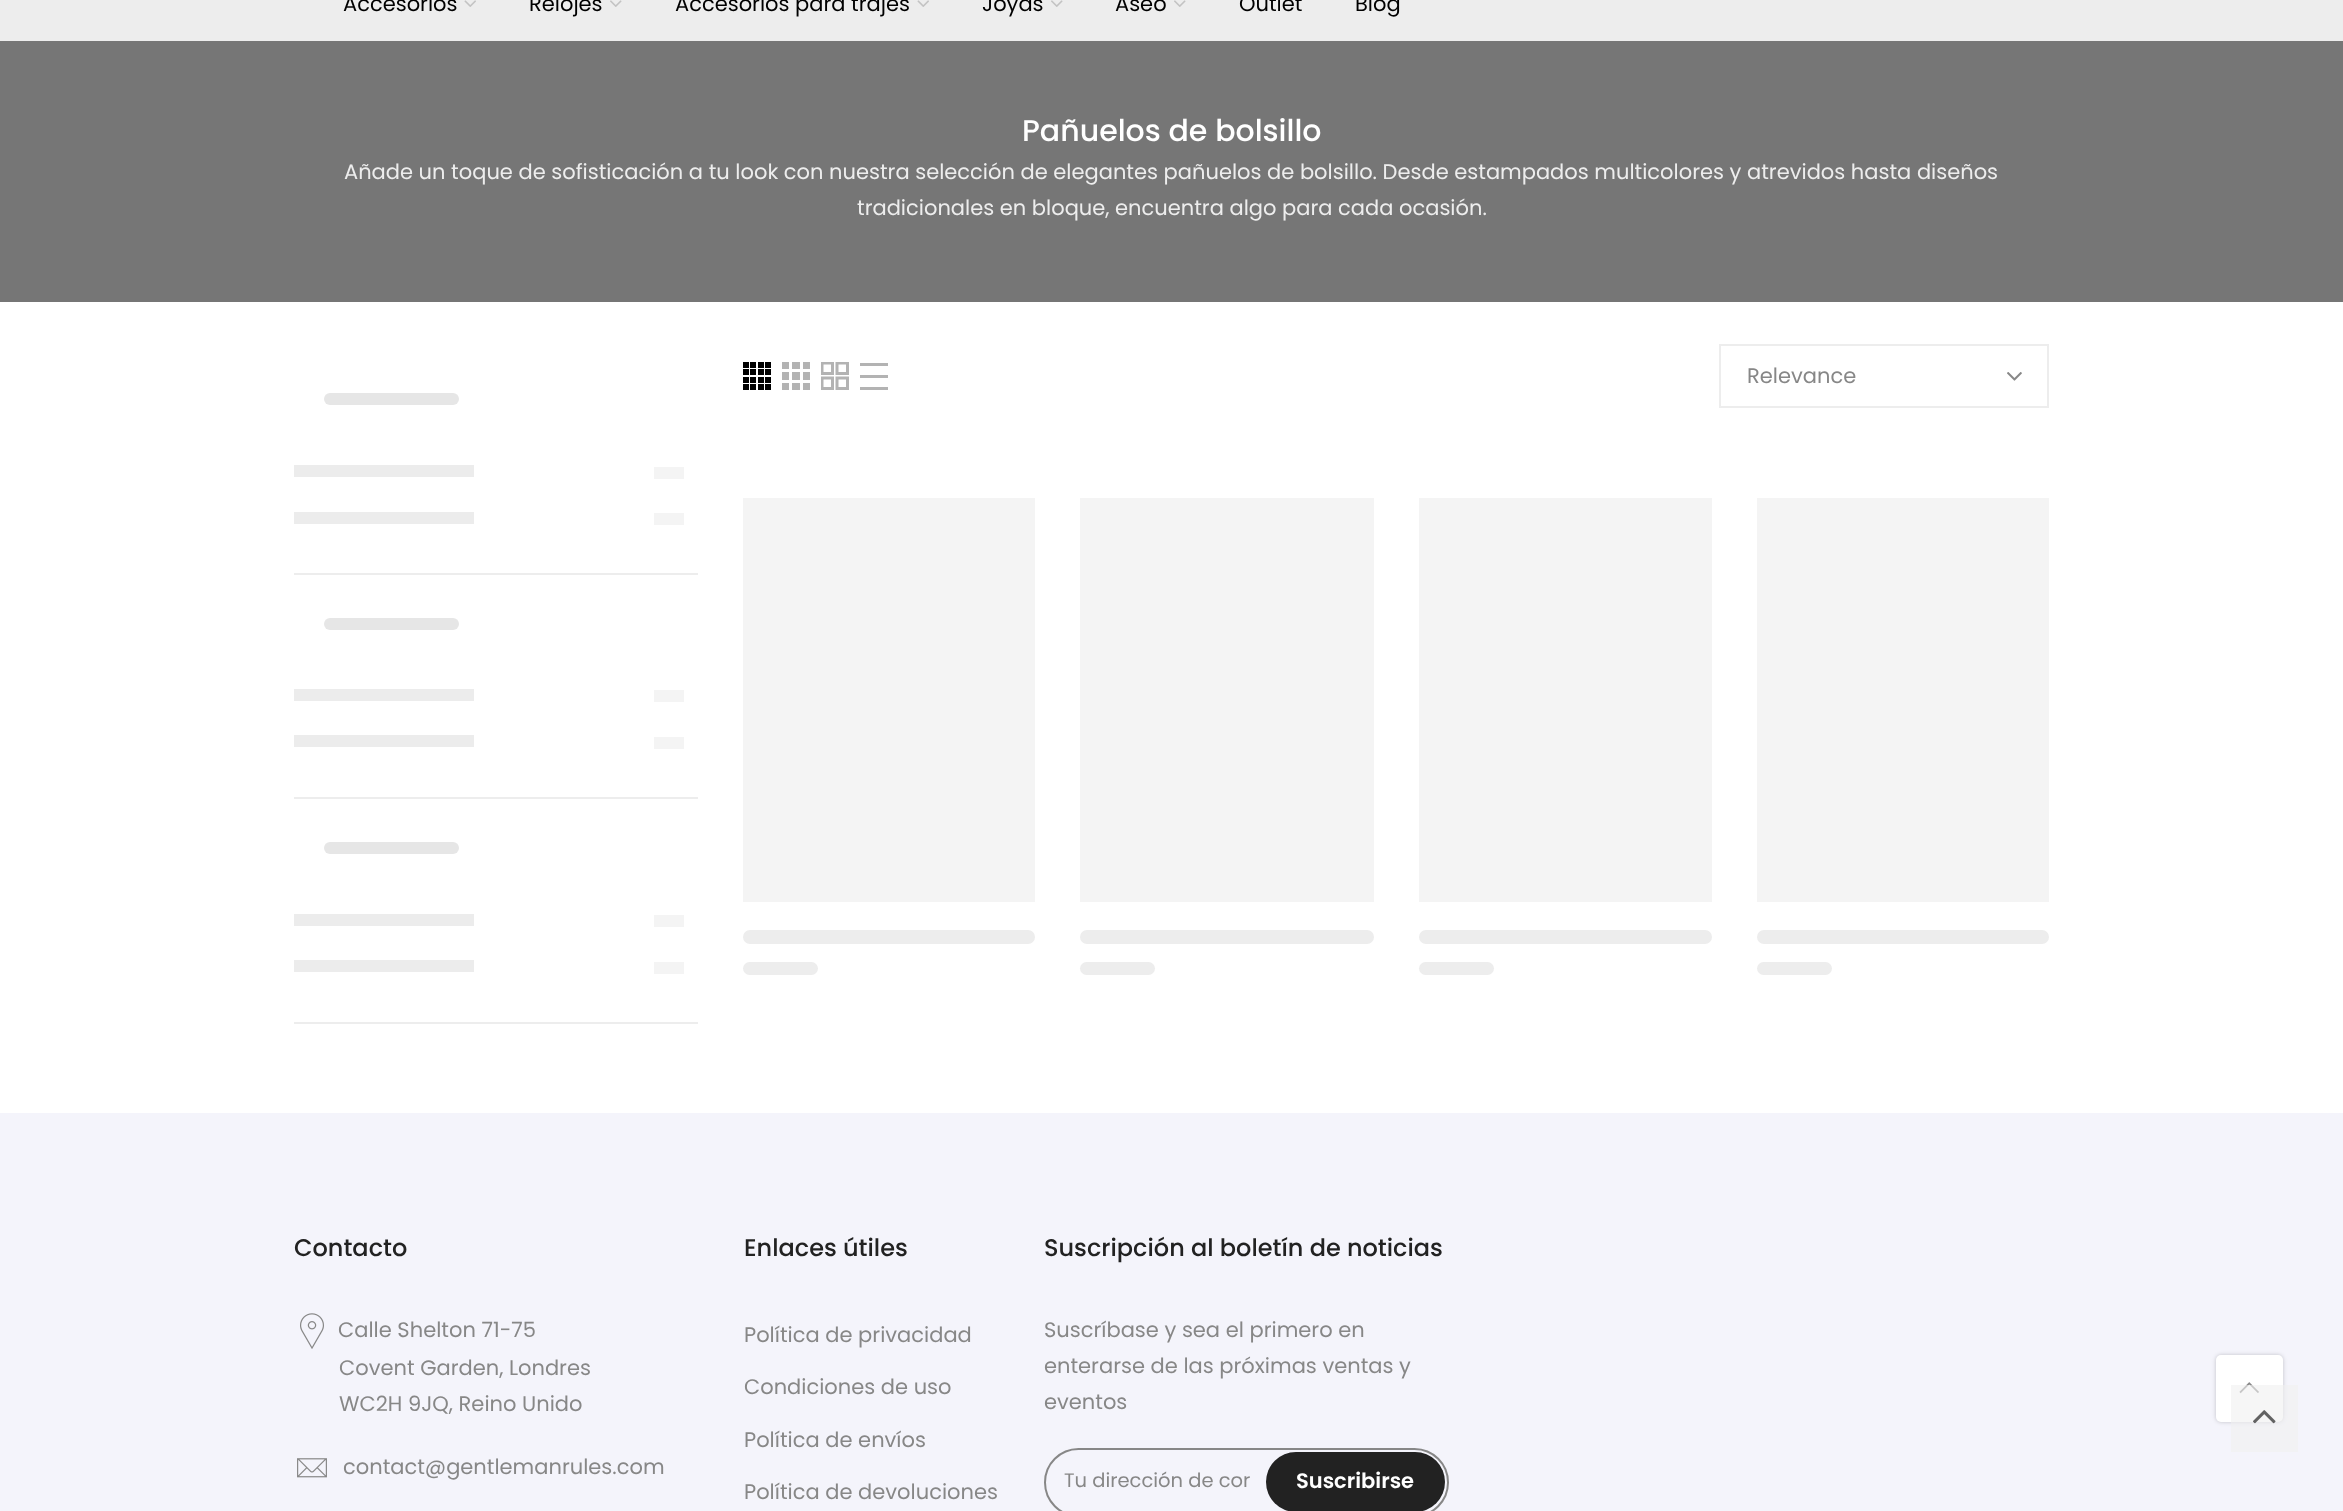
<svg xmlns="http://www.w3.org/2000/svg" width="2343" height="1511">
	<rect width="100%" height="100%" fill="#FFFFFF" />
	<rect x="0" y="0" width="2343" height="41" fill="#EDEDED" />
	<text x="343" y="11" font-family="Poppins" font-size="21" fill="#000000">Accesorios</text>
	<image x="464" y="0" width="12" height="7" href="assets/img1.png" />
	<text x="529" y="11" font-family="Poppins" font-size="21" fill="#000000">Relojes</text>
	<image x="610" y="0" width="12" height="7" href="assets/img2.png" />
	<text x="675" y="11" font-family="Poppins" font-size="21" fill="#000000">Accesorios para trajes</text>
	<image x="917" y="0" width="12" height="7" href="assets/img1.png" />
	<text x="982" y="11" font-family="Poppins" font-size="21" fill="#000000">Joyas</text>
	<image x="1051" y="0" width="12" height="7" href="assets/img2.png" />
	<text x="1115" y="11" font-family="Poppins" font-size="21" fill="#000000">Aseo</text>
	<image x="1174" y="0" width="12" height="7" href="assets/img2.png" />
	<g font-family="Poppins" font-size="21" fill="#000000">
		<text x="1239" y="11">Outlet</text>
		<text x="1355" y="11">Blog</text>
	</g>
	<rect x="0" y="41" width="2343" height="261" fill="#767676" />
	<text x="1022" y="141" font-family="Poppins" font-size="30" font-weight="500" fill="#FFFFFF">Pañuelos de bolsillo</text>
	<g font-family="Poppins" font-size="21" fill="#EDEDED">
		<text x="344" y="179">Añade un toque de sofisticación a tu look con nuestra selección de elegantes pañuelos de bolsillo. Desde estampados multicolores y atrevidos hasta diseños</text>
		<text x="857" y="215">tradicionales en bloque, encuentra algo para cada ocasión.</text>
	</g>
	<image x="743" y="362" width="28" height="28" href="assets/img3.png" />
	<image x="782" y="362" width="28" height="28" href="assets/img4.png" />
	<image x="821" y="362" width="28" height="28" href="assets/img5.png" />
	<rect x="860" y="363" width="28" height="3" fill="#B3B3B3" />
	<rect x="860" y="375" width="28" height="3" fill="#B3B3B3" />
	<rect x="860" y="387" width="28" height="3" fill="#B3B3B3" />
	<rect x="1720" y="345" width="328" height="62" fill="none" stroke="#EDEDED" stroke-width="2" />
	<text x="1747" y="383" font-family="Poppins" font-size="21" fill="#878787">Relevance</text>
	<image x="2007" y="372" width="15" height="9" href="assets/img6.png" />
	<rect x="743" y="498" width="292" height="404" fill="#F4F4F4" />
	<rect x="743" y="930" width="292" height="14" rx="7" fill="#EDEDED" />
	<rect x="743" y="962" width="75" height="13" rx="6.5" fill="#EDEDED" />
	<rect x="1080" y="498" width="294" height="404" fill="#F4F4F4" />
	<rect x="1080" y="930" width="294" height="14" rx="7" fill="#EDEDED" />
	<rect x="1080" y="962" width="75" height="13" rx="6.5" fill="#EDEDED" />
	<rect x="1419" y="498" width="293" height="404" fill="#F4F4F4" />
	<rect x="1419" y="930" width="293" height="14" rx="7" fill="#EDEDED" />
	<rect x="1419" y="962" width="75" height="13" rx="6.5" fill="#EDEDED" />
	<rect x="1757" y="498" width="292" height="404" fill="#F4F4F4" />
	<rect x="1757" y="930" width="292" height="14" rx="7" fill="#EDEDED" />
	<rect x="1757" y="962" width="75" height="13" rx="6.5" fill="#EDEDED" />
	<rect x="294" y="573" width="404" height="2" fill="#EDEDED" />
	<rect x="324" y="393" width="135" height="12" rx="6" fill="#E6E6E6" />
	<rect x="294" y="465" width="180" height="12" fill="#ECECEC" />
	<rect x="654" y="467" width="30" height="12" fill="#F4F4F4" />
	<rect x="294" y="512" width="180" height="12" fill="#ECECEC" />
	<rect x="654" y="513" width="30" height="12" fill="#F4F4F4" />
	<rect x="294" y="797" width="404" height="2" fill="#EDEDED" />
	<rect x="324" y="618" width="135" height="12" rx="6" fill="#E6E6E6" />
	<rect x="294" y="689" width="180" height="12" fill="#ECECEC" />
	<rect x="654" y="690" width="30" height="12" fill="#F4F4F4" />
	<rect x="294" y="735" width="180" height="12" fill="#ECECEC" />
	<rect x="654" y="737" width="30" height="12" fill="#F4F4F4" />
	<rect x="294" y="1022" width="404" height="2" fill="#EDEDED" />
	<rect x="324" y="842" width="135" height="12" rx="6" fill="#E6E6E6" />
	<rect x="294" y="914" width="180" height="12" fill="#ECECEC" />
	<rect x="654" y="915" width="30" height="12" fill="#F4F4F4" />
	<rect x="294" y="960" width="180" height="12" fill="#ECECEC" />
	<rect x="654" y="962" width="30" height="12" fill="#F4F4F4" />
	<rect x="0" y="1113" width="2343" height="398" fill="#F4F4FB" />
	<text x="294" y="1256" font-family="Poppins" font-size="24" font-weight="500" fill="#222222">Contacto</text>
	<image x="300" y="1313" width="24" height="36" href="assets/img7.png" />
	<g font-family="Poppins" font-size="21" fill="#878787">
		<text x="338" y="1337">Calle Shelton 71-75</text>
		<text x="339" y="1375">Covent Garden, Londres</text>
		<text x="339" y="1411">WC2H 9JQ, Reino Unido</text>
	</g>
	<image x="297" y="1458" width="30" height="20" href="assets/img8.png" />
	<text x="343" y="1474" font-family="Poppins" font-size="21" fill="#878787">contact@gentlemanrules.com</text>
	<text x="744" y="1256" font-family="Poppins" font-size="24" font-weight="500" fill="#222222">Enlaces útiles</text>
	<g font-family="Poppins" font-size="21" fill="#878787">
		<text x="744" y="1342">Política de privacidad</text>
		<text x="744" y="1394">Condiciones de uso</text>
		<text x="744" y="1447">Política de envíos</text>
		<text x="744" y="1499">Política de devoluciones</text>
	</g>
	<text x="1044" y="1256" font-family="Poppins" font-size="24" font-weight="500" fill="#222222">Suscripción al boletín de noticias</text>
	<g font-family="Poppins" font-size="21" fill="#878787">
		<text x="1044" y="1337">Suscríbase y sea el primero en</text>
		<text x="1044" y="1373">enterarse de las próximas ventas y</text>
		<text x="1044" y="1409">eventos</text>
	</g>
	<rect x="1045" y="1449" width="403" height="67" rx="33.5" fill="none" stroke="#878787" stroke-width="2" />
	<text x="1064" y="1487" font-family="Poppins" font-size="19.5" fill="#878787">Tu dirección de cor</text>
	<rect x="1266" y="1452" width="179" height="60" rx="30" fill="#222222" />
	<text x="1296" y="1488" font-family="Poppins" font-size="21" font-weight="600" fill="#FFFFFF">Suscribirse</text>
	<rect x="2216" y="1355" width="67" height="67" rx="5" fill="#000000" fill-opacity="0.2" filter="blur(2px)" />
	<rect x="2216" y="1355" width="67" height="67" rx="5" fill="#FFFFFF" />
	<image x="2239" y="1382" width="20" height="12" href="assets/img9.png" />
	<rect x="2231" y="1385" width="67" height="67" fill="#F0F0F0" fill-opacity="0.6" />
	<image x="2253" y="1410" width="23" height="14" href="assets/img10.png" />
</svg>
